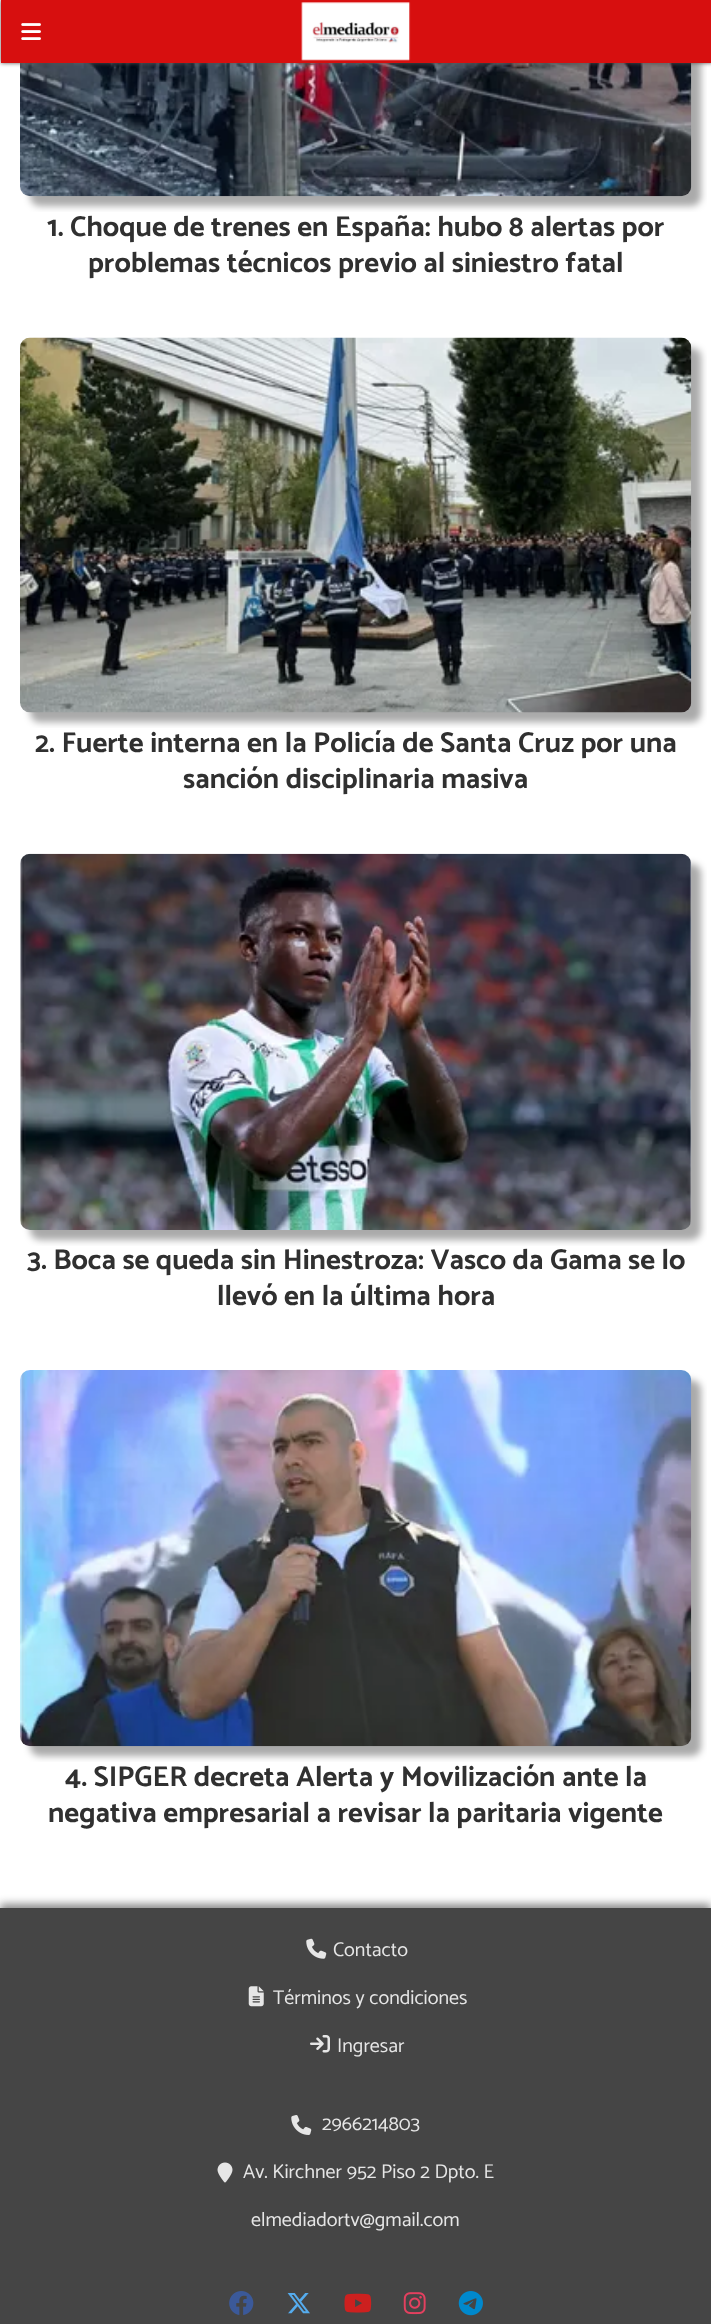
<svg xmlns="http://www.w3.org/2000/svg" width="711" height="2324">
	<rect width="100%" height="100%" fill="#FFFFFF" />
	<image x="20" y="63" width="687" height="149" href="assets/img3.png" />
	<rect x="1" y="0" width="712" height="63" fill="#555555" filter="blur(2px)" />
	<rect x="1" y="0" width="710" height="63" fill="#D70F0F" />
	<image x="21" y="23" width="20" height="17" href="assets/img1.png" />
	<image x="301" y="2" width="110" height="59" href="assets/img2.png" />
	<g font-family="Catamaran" font-size="28.8" font-weight="700" fill="#303030">
		<text x="47" y="236">1. Choque de trenes en España: hubo 8 alertas por</text>
		<text x="88" y="272">problemas técnicos previo al siniestro fatal</text>
	</g>
	<image x="20" y="337" width="687" height="391" href="assets/img4.png" />
	<g font-family="Catamaran" font-size="28.8" font-weight="700" fill="#303030">
		<text x="35" y="752">2. Fuerte interna en la Policía de Santa Cruz por una</text>
		<text x="183" y="788">sanción disciplinaria masiva</text>
	</g>
	<image x="20" y="853" width="687" height="393" href="assets/img5.png" />
	<g font-family="Catamaran" font-size="28.8" font-weight="700" fill="#303030">
		<text x="27" y="1269">3. Boca se queda sin Hinestroza: Vasco da Gama se lo</text>
		<text x="217" y="1305">llevó en la última hora</text>
	</g>
	<image x="20" y="1370" width="687" height="392" href="assets/img6.png" />
	<g font-family="Catamaran" font-size="28.8" font-weight="700" fill="#303030">
		<text x="65" y="1786">4. SIPGER decreta Alerta y Movilización ante la</text>
		<text x="48" y="1822">negativa empresarial a revisar la paritaria vigente</text>
	</g>
	<rect x="0" y="1904" width="711" height="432" fill="#888888" filter="blur(4px)" />
	<rect x="0" y="1908" width="711" height="416" fill="#454545" />
	<image x="306" y="1938" width="21" height="21" href="assets/img7.png" />
	<text x="333" y="1956" font-family="Catamaran" font-size="20" fill="#E6E6E6">Contacto</text>
	<image x="248" y="1986" width="16" height="21" href="assets/img8.png" />
	<text x="273" y="2004" font-family="Catamaran" font-size="20" fill="#E6E6E6">Términos y condiciones</text>
	<image x="310" y="2035" width="20" height="18" href="assets/img9.png" />
	<text x="337" y="2052" font-family="Catamaran" font-size="20" fill="#E6E6E6">Ingresar</text>
	<image x="291" y="2115" width="21" height="20" href="assets/img10.png" />
	<text x="322" y="2130" font-family="Catamaran" font-size="20" fill="#E6E6E6">2966214803</text>
	<image x="217" y="2162" width="16" height="21" href="assets/img11.png" />
	<g font-family="Catamaran" font-size="20" fill="#E6E6E6">
		<text x="243" y="2178">Av. Kirchner 952 Piso 2 Dpto. E</text>
		<text x="251" y="2226">elmediadortv@gmail.com</text>
	</g>
	<image x="229" y="2291" width="25" height="24" href="assets/img12.png" />
	<image x="287" y="2293" width="23" height="21" href="assets/img13.png" />
	<image x="344" y="2293" width="28" height="20" href="assets/img14.png" />
	<image x="403" y="2292" width="23" height="23" href="assets/img15.png" />
	<image x="458" y="2291" width="25" height="25" href="assets/img16.png" />
</svg>
